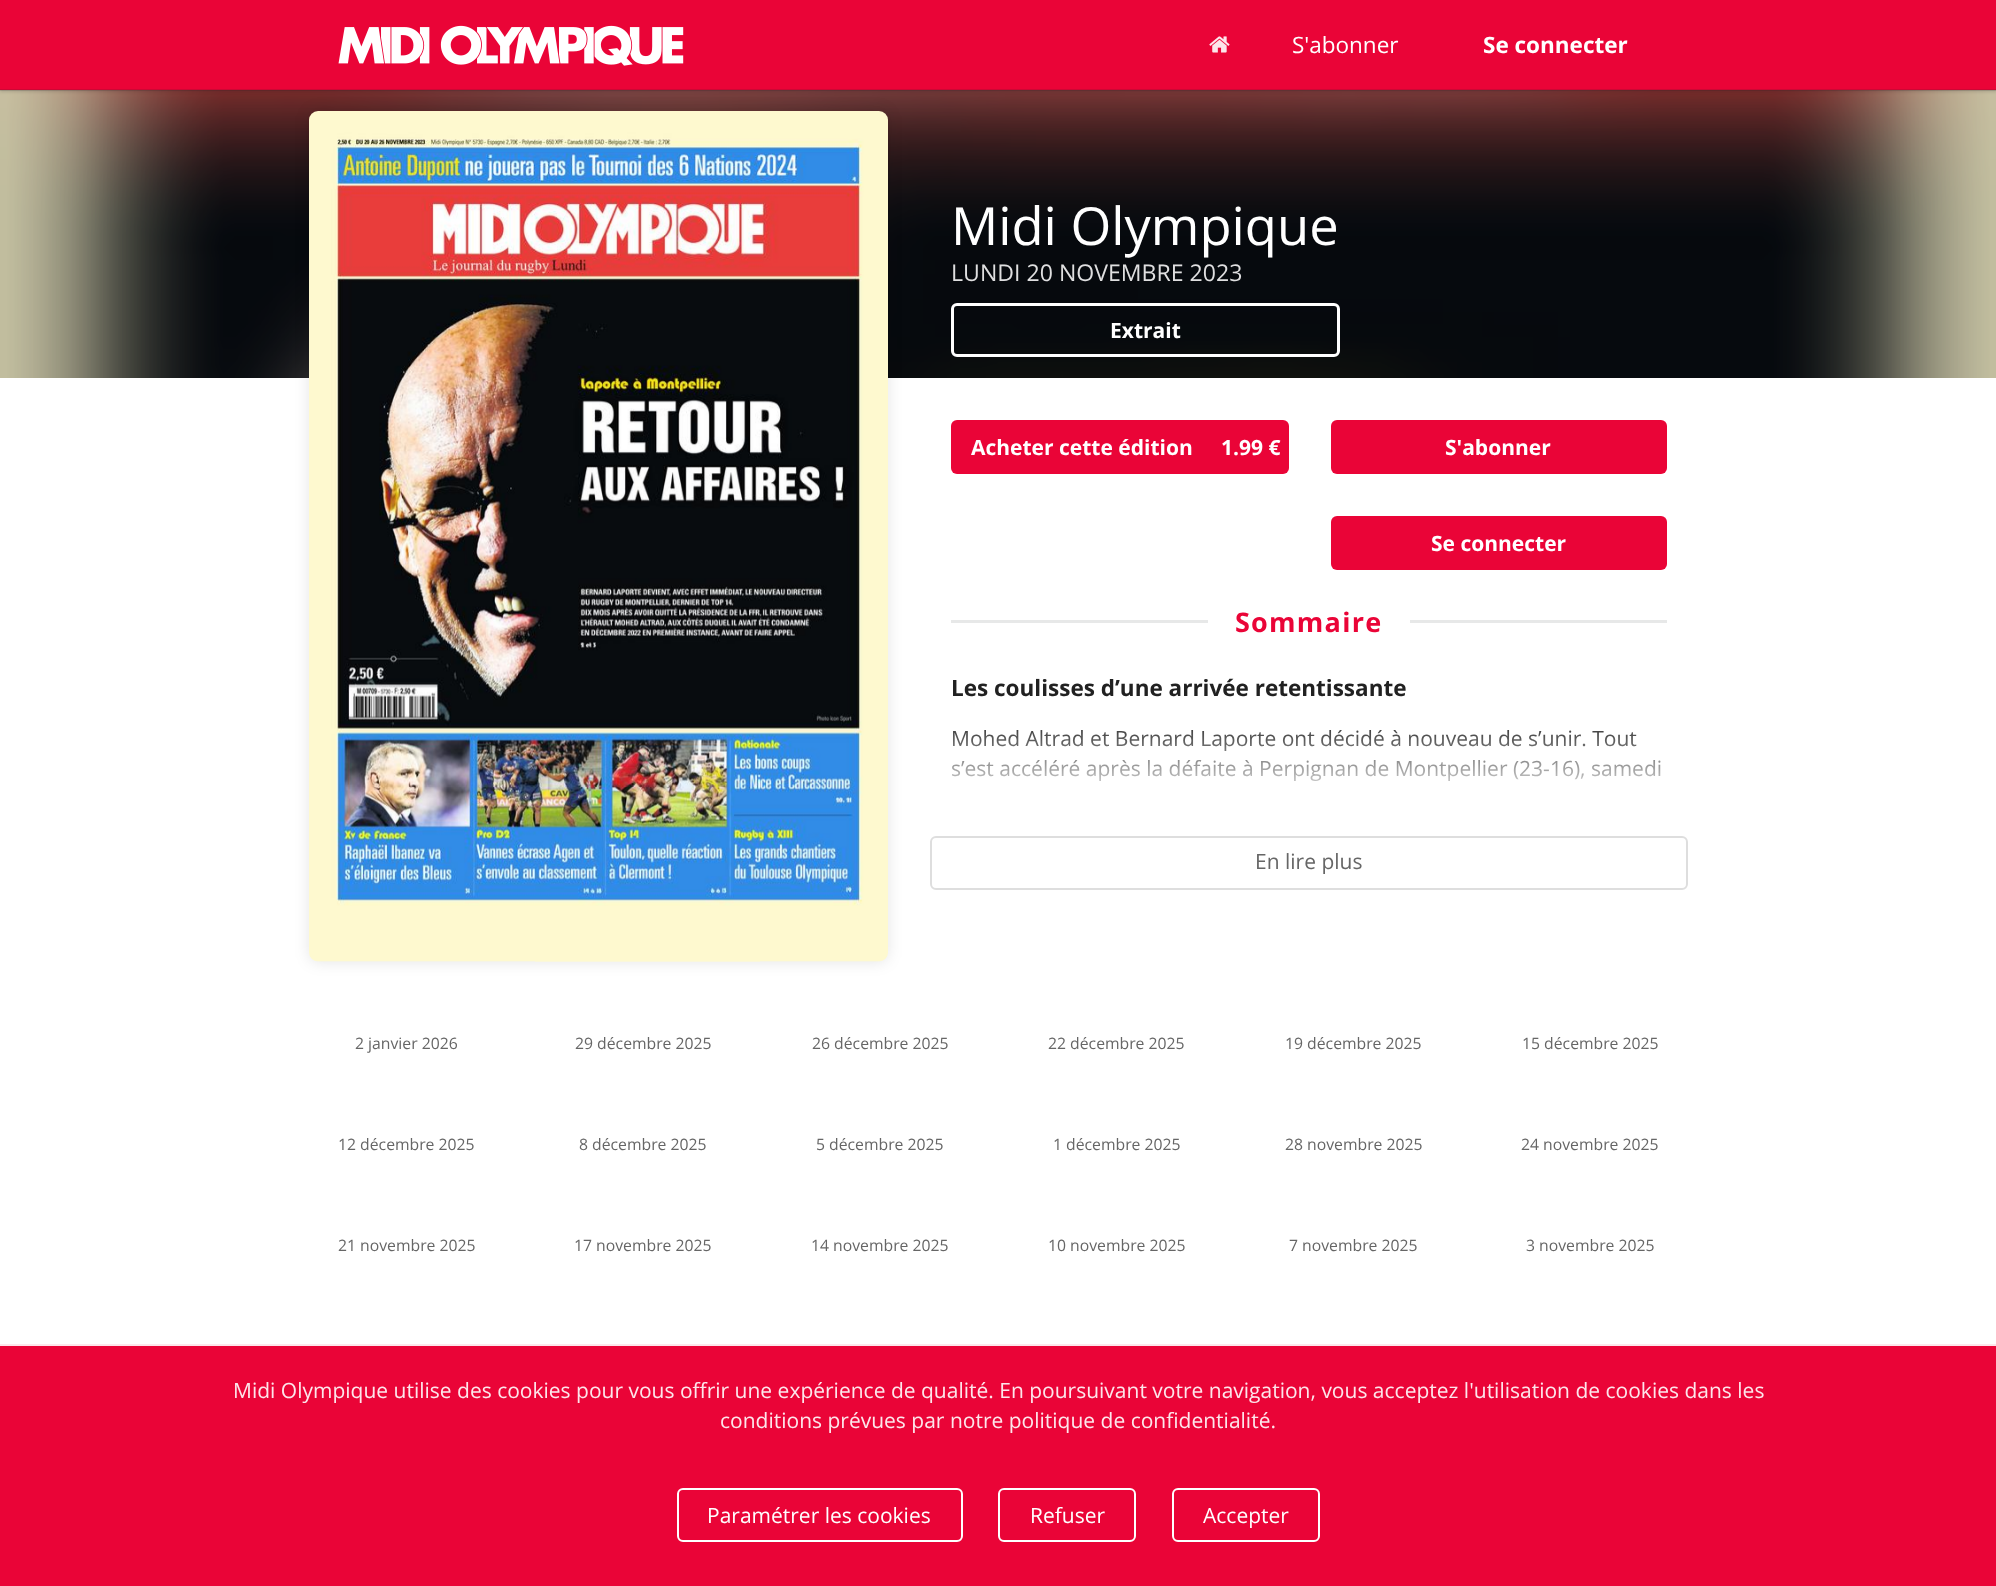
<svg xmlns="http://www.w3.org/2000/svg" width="1996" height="1586">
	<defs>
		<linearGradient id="g1" gradientUnits="userSpaceOnUse" x1="1330" y1="716" x2="1330" y2="836"><stop offset="0" stop-color="#FFFFFF" stop-opacity="0" /><stop offset="0.75" stop-color="#FFFFFF" /></linearGradient>
	</defs>
	<rect width="100%" height="100%" fill="#FFFFFF" />
	<image x="0" y="90" width="1996" height="288" href="assets/img3.png" />
	<rect x="0" y="2" width="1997" height="90" fill="#222426" fill-opacity="0.15" filter="blur(1.5px)" />
	<rect x="309" y="111" width="579" height="851" rx="9" fill="#000000" fill-opacity="0.1" filter="blur(7.5px)" />
	<rect x="0" y="0" width="1996" height="90" fill="#EA0437" />
	<rect x="0" y="89" width="1996" height="2" fill="#222426" fill-opacity="0.15" />
	<image x="338" y="25" width="346" height="41" href="assets/img1.png" />
	<image x="1209" y="36" width="21" height="17" href="assets/img2.png" />
	<text x="1292" y="53" font-family="Open Sans" font-size="22.5" fill="#FFFFFF">S'abonner</text>
	<text x="1483" y="53" font-family="Open Sans" font-size="22.5" font-weight="700" fill="#FFFFFF">Se connecter</text>
	<image x="309" y="111" width="579" height="851" href="assets/img4.png" />
	<text x="951" y="245" font-family="Open Sans" font-size="52.5" fill="#FFFFFF">Midi Olympique</text>
	<text x="951" y="281" font-family="Open Sans" font-size="23.1" fill="#DFDFE0">LUNDI 20 NOVEMBRE 2023</text>
	<rect x="952.5" y="304.5" width="386" height="51" rx="4.5" fill="none" stroke="#FFFFFF" stroke-width="3" />
	<text x="1110" y="338" font-family="Open Sans" font-size="21" font-weight="700" fill="#FFFFFF">Extrait</text>
	<rect x="951" y="420" width="338" height="54" rx="6" fill="#EA0437" />
	<g font-family="Open Sans" font-size="21" font-weight="700" fill="#FFFFFF">
		<text x="971" y="455">Acheter cette édition</text>
		<text x="1221" y="455">1.99 €</text>
	</g>
	<rect x="1331" y="420" width="336" height="54" rx="6" fill="#EA0437" />
	<text x="1445" y="455" font-family="Open Sans" font-size="21" font-weight="700" fill="#FFFFFF">S'abonner</text>
	<rect x="1331" y="516" width="336" height="54" rx="6" fill="#EA0437" />
	<text x="1431" y="551" font-family="Open Sans" font-size="21" font-weight="700" fill="#FFFFFF">Se connecter</text>
	<rect x="951" y="620" width="257" height="3" fill="#E7E8E8" />
	<text x="1235" y="632" font-family="Open Sans" font-size="27" font-weight="700" letter-spacing="1.25" fill="#EA0437">Sommaire</text>
	<rect x="1410" y="620" width="257" height="3" fill="#E7E8E8" />
	<text x="951" y="696" font-family="Open Sans" font-size="22.5" font-weight="700" fill="#212121">Les coulisses d’une arrivée retentissante</text>
	<g font-family="Open Sans" font-size="21" fill="#212121">
		<text x="951" y="746">Mohed Altrad et Bernard Laporte ont décidé à nouveau de s’unir. Tout</text>
		<text x="951" y="776">s’est accéléré après la défaite à Perpignan de Montpellier (23-16), samedi</text>
	</g>
	<rect x="952" y="730" width="709" height="51" fill="url(#g1)" />
	<rect x="931" y="837" width="756" height="52" rx="5" fill="none" stroke="#DEDEDE" stroke-width="2" />
	<text x="1255" y="869" font-family="Open Sans" font-size="21" fill="#666666">En lire plus</text>
	<g font-family="Open Sans" font-size="15.75" fill="#666666">
		<text x="355" y="1049">2 janvier 2026</text>
		<text x="575" y="1049">29 décembre 2025</text>
		<text x="812" y="1049">26 décembre 2025</text>
		<text x="1048" y="1049">22 décembre 2025</text>
		<text x="1285" y="1049">19 décembre 2025</text>
		<text x="1522" y="1049">15 décembre 2025</text>
		<text x="338" y="1150">12 décembre 2025</text>
		<text x="579" y="1150">8 décembre 2025</text>
		<text x="816" y="1150">5 décembre 2025</text>
		<text x="1053" y="1150">1 décembre 2025</text>
		<text x="1285" y="1150">28 novembre 2025</text>
		<text x="1521" y="1150">24 novembre 2025</text>
		<text x="338" y="1251">21 novembre 2025</text>
		<text x="574" y="1251">17 novembre 2025</text>
		<text x="811" y="1251">14 novembre 2025</text>
		<text x="1048" y="1251">10 novembre 2025</text>
		<text x="1289" y="1251">7 novembre 2025</text>
		<text x="1526" y="1251">3 novembre 2025</text>
	</g>
	<rect x="0" y="1346" width="1996" height="240" fill="#EA0437" />
	<rect x="0" y="1344" width="1996" height="2" fill="#FDE6EB" />
	<g font-family="Open Sans" font-size="21" fill="#FDE6EB">
		<text x="233" y="1398">Midi Olympique utilise des cookies pour vous offrir une expérience de qualité. En poursuivant votre navigation, vous acceptez l'utilisation de cookies dans les</text>
		<text x="720" y="1428">conditions prévues par notre politique de confidentialité.</text>
	</g>
	<rect x="678" y="1489" width="284" height="52" rx="5" fill="none" stroke="#FFFFFF" stroke-width="2" />
	<text x="707" y="1523" font-family="Open Sans" font-size="21" fill="#FFFFFF">Paramétrer les cookies</text>
	<rect x="999" y="1489" width="136" height="52" rx="5" fill="none" stroke="#FFFFFF" stroke-width="2" />
	<text x="1030" y="1523" font-family="Open Sans" font-size="21" fill="#FFFFFF">Refuser</text>
	<rect x="1173" y="1489" width="146" height="52" rx="5" fill="none" stroke="#FFFFFF" stroke-width="2" />
	<text x="1203" y="1523" font-family="Open Sans" font-size="21" fill="#FFFFFF">Accepter</text>
</svg>
